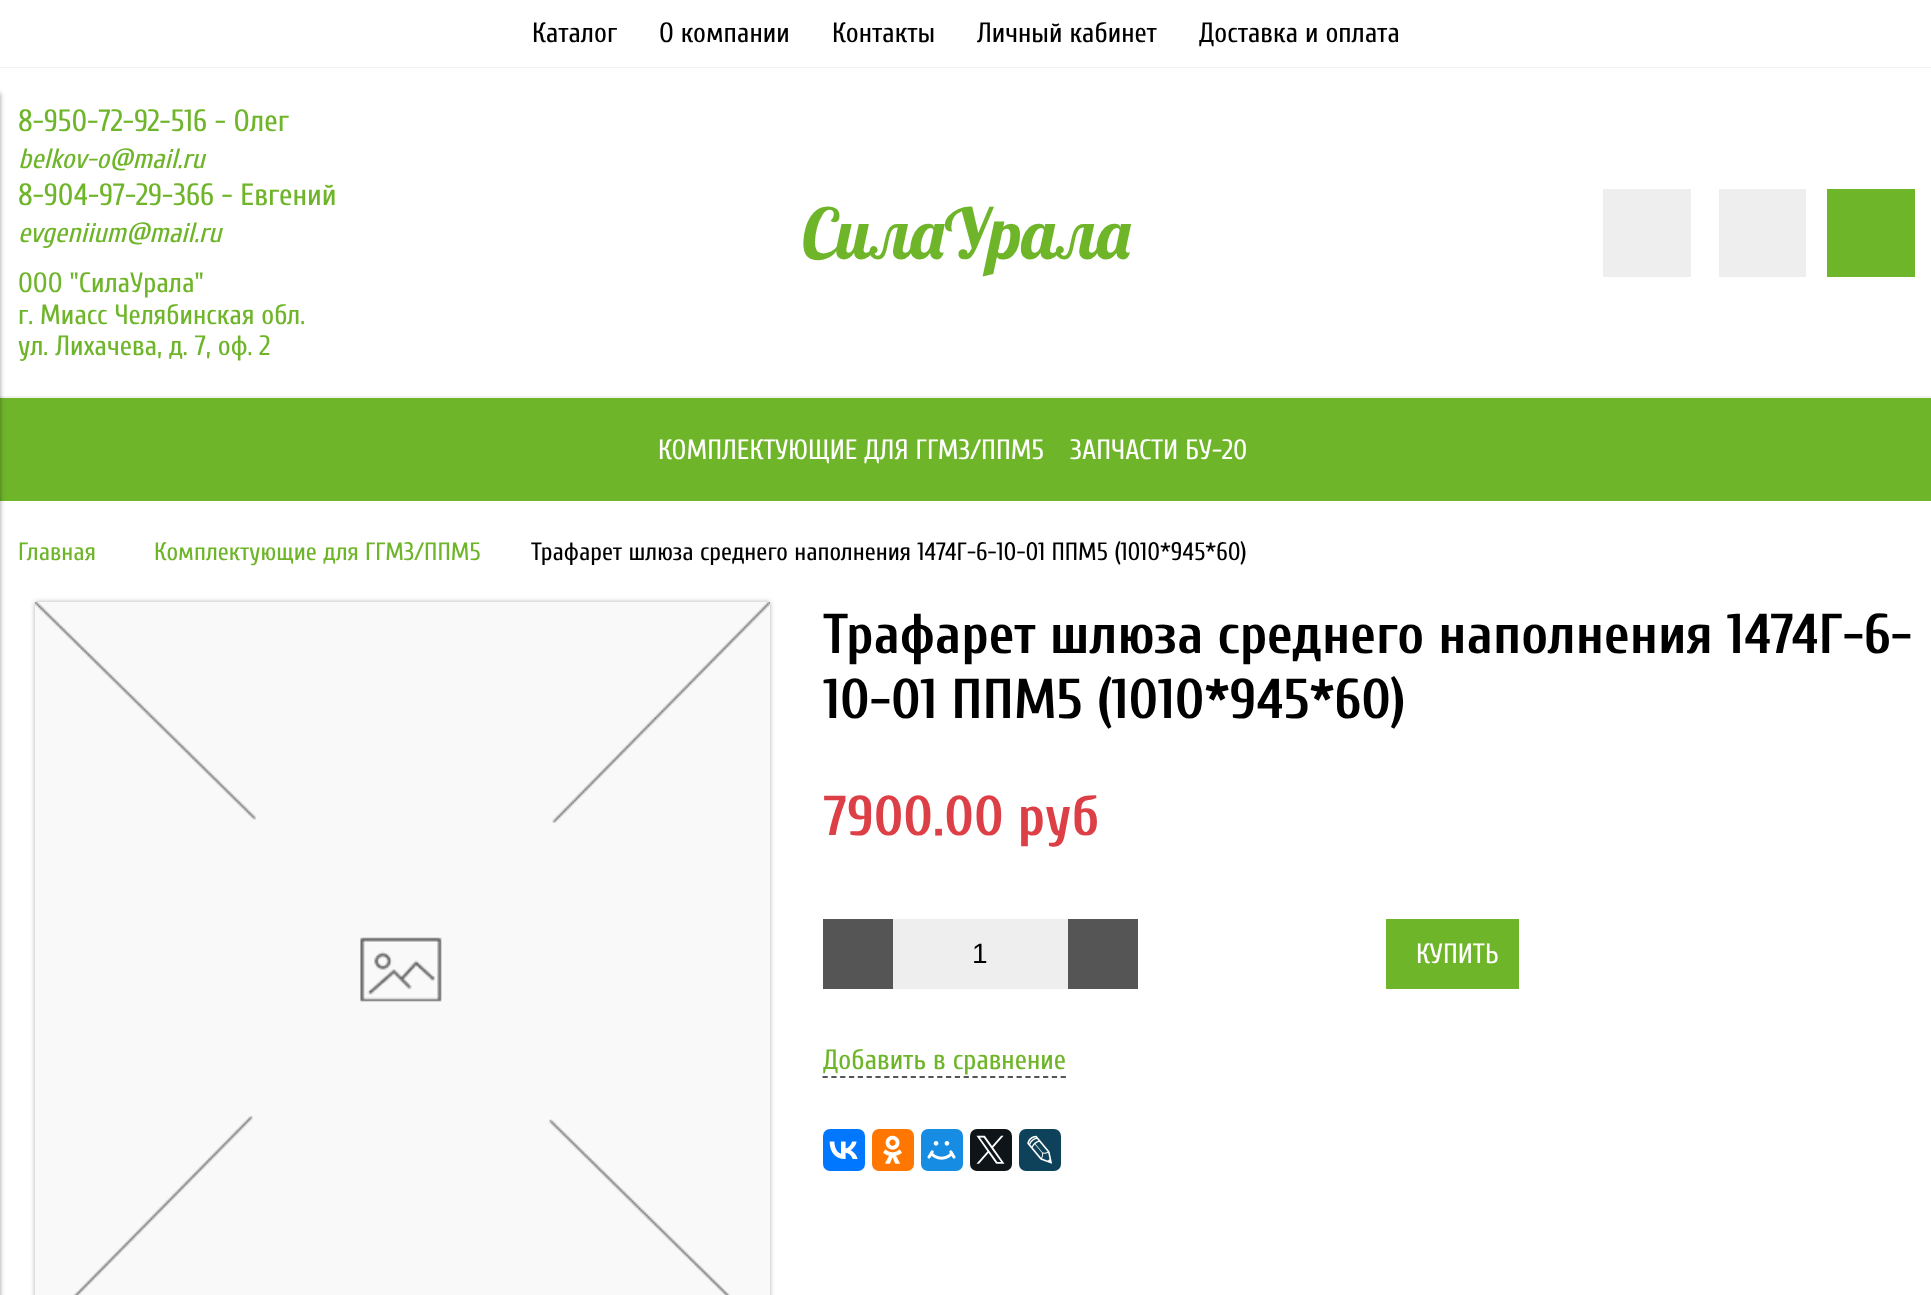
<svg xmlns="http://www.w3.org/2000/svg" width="1931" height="1295">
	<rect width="100%" height="100%" fill="#FFFFFF" />
	<rect x="0" y="396" width="1931" height="2" fill="#F2F2F2" />
	<rect x="0" y="398" width="1931" height="103" fill="#6FB52A" />
	<rect x="-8" y="93" width="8" height="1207" fill="#000000" fill-opacity="0.4" filter="blur(2.5px)" />
	<rect x="0" y="67" width="1931" height="1" fill="#F2F2F2" />
	<g font-family="Cuprum" font-size="28" fill="#000000">
		<text x="532" y="42">Каталог</text>
		<text x="659" y="42">О компании</text>
		<text x="832" y="42">Контакты</text>
		<text x="977" y="42">Личный кабинет</text>
		<text x="1199" y="42">Доставка и оплата</text>
	</g>
	<text x="18" y="131" font-family="Cuprum" font-size="30.75" fill="#6FB52A">8-950-72-92-516 - Олег</text>
	<text x="18" y="168" font-family="Cuprum" font-size="28" font-style="italic" fill="#6FB52A">belkov-o@mail.ru</text>
	<text x="18" y="205" font-family="Cuprum" font-size="30.75" fill="#6FB52A">8-904-97-29-366 - Евгений</text>
	<text x="18" y="242" font-family="Cuprum" font-size="28" font-style="italic" fill="#6FB52A">evgeniium@mail.ru</text>
	<g font-family="Cuprum" font-size="28" fill="#6FB52A">
		<text x="18" y="292">ООО "СилаУрала"</text>
		<text x="18" y="324">г. Миасс Челябинская обл.</text>
		<text x="18" y="355">ул. Лихачева, д. 7, оф. 2</text>
	</g>
	<text x="802" y="259" font-family="Lobster" font-size="70" fill="#6FB52A">СилаУрала</text>
	<rect x="1603" y="189" width="88" height="88" fill="#EEEEEE" />
	<rect x="1719" y="189" width="87" height="88" fill="#EEEEEE" />
	<rect x="1827" y="189" width="88" height="88" fill="#6FB52A" />
	<g font-family="Cuprum" font-size="28" fill="#FFFFFF">
		<text x="658" y="459">КОМПЛЕКТУЮЩИЕ ДЛЯ ГГМ3/ППМ5</text>
		<text x="1070" y="459">ЗАПЧАСТИ БУ-20</text>
	</g>
	<g font-family="Cuprum" font-size="25.2" fill="#6FB52A">
		<text x="18" y="560">Главная</text>
		<text x="154" y="560">Комплектующие для ГГМ3/ППМ5</text>
	</g>
	<text x="531" y="560" font-family="Cuprum" font-size="25.2" fill="#000000">Трафарет шлюза среднего наполнения 1474Г-6-10-01 ППМ5 (1010*945*60)</text>
	<rect x="35" y="602" width="735" height="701" fill="#000000" fill-opacity="0.3" filter="blur(2.5px)" />
	<image x="35" y="602" width="735" height="693" href="assets/img1.png" />
	<g font-family="Cuprum" font-size="56" font-weight="700" fill="#000000">
		<text x="823" y="653">Трафарет шлюза среднего наполнения 1474Г-6-</text>
		<text x="823" y="718">10-01 ППМ5 (1010*945*60)</text>
	</g>
	<text x="823" y="835" font-family="Cuprum" font-size="56" font-weight="700" fill="#DD3F46">7900.00 руб</text>
	<rect x="823" y="919" width="70" height="70" fill="#555555" />
	<rect x="893" y="919" width="175" height="70" fill="#EEEEEE" />
	<text x="972" y="963" font-family="Liberation Sans" font-size="28" fill="#000000">1</text>
	<rect x="1068" y="919" width="70" height="70" fill="#555555" />
	<rect x="1386" y="919" width="133" height="70" fill="#6FB52A" />
	<text x="1416" y="963" font-family="Cuprum" font-size="28" fill="#FFFFFF">КУПИТЬ</text>
	<text x="823" y="1069" font-family="Cuprum" font-size="28" fill="#6FB52A">Добавить в сравнение</text>
	<path d="M822.5 1077H1066" fill="none" stroke="#555555" stroke-width="1.8" stroke-dasharray="5.25 3.57" />
	<rect x="823" y="1129" width="42" height="42" rx="7" fill="#0077FF" />
	<image x="829" y="1141" width="29" height="18" href="assets/img2.png" />
	<rect x="872" y="1129" width="42" height="42" rx="7" fill="#FF7700" />
	<image x="883" y="1135" width="19" height="29" href="assets/img3.png" />
	<rect x="921" y="1129" width="42" height="42" rx="7" fill="#168DE2" />
	<image x="927" y="1141" width="29" height="19" href="assets/img4.png" />
	<rect x="970" y="1129" width="42" height="42" rx="7" fill="#0F1419" />
	<image x="976" y="1135" width="29" height="29" href="assets/img5.png" />
	<rect x="1019" y="1129" width="42" height="42" rx="7" fill="#0D425A" />
	<image x="1027" y="1135" width="25" height="29" href="assets/img6.png" />
</svg>
